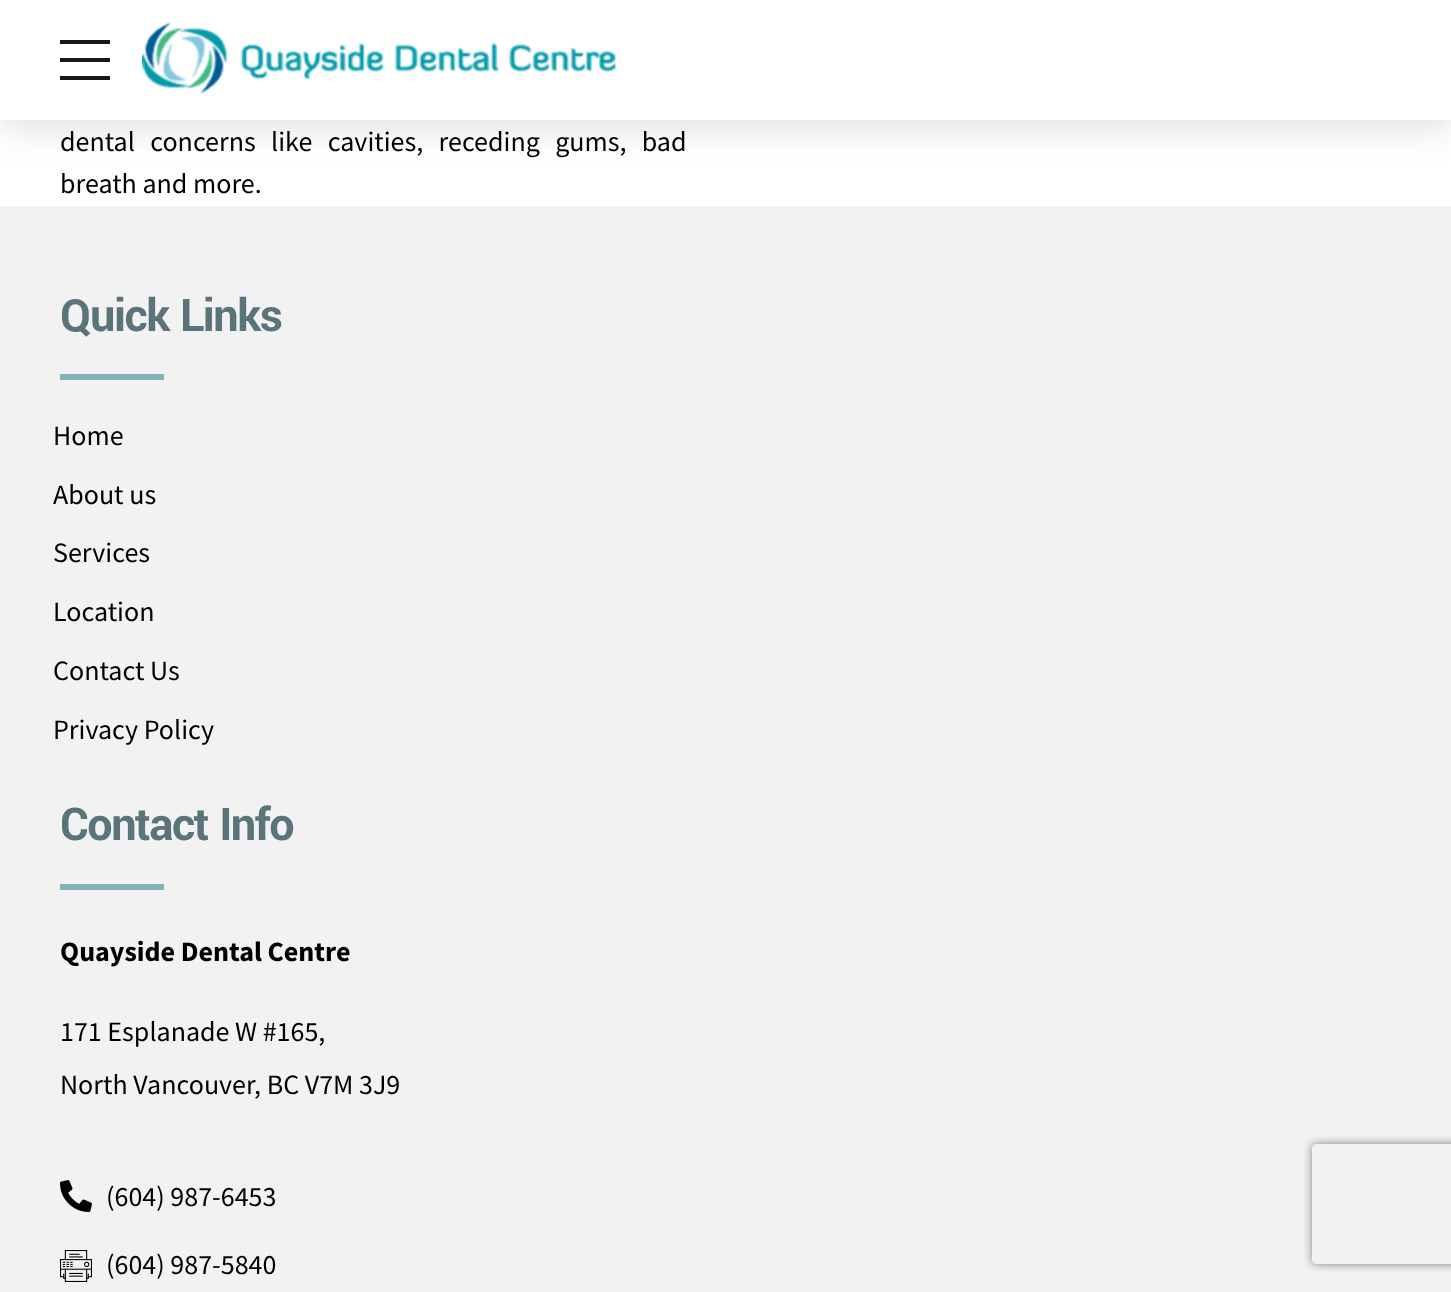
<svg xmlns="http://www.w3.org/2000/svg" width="1451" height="1292">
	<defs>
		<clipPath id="clip1"><path d="M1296 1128H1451V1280H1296ZM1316 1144H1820C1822 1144 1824 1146 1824 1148V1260C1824 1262 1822 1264 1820 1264H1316C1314 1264 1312 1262 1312 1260V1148C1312 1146 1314 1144 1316 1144Z" clip-rule="evenodd" /></clipPath>
	</defs>
	<rect width="100%" height="100%" fill="#FFFFFF" />
	<rect x="0" y="4" width="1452" height="120" fill="#000000" fill-opacity="0.15" filter="blur(20px)" />
	<rect x="0" y="0" width="1451" height="120" fill="#FFFFFF" />
	<rect x="60" y="40" width="50" height="4" fill="#181818" />
	<rect x="60" y="58" width="50" height="4" fill="#181818" />
	<rect x="60" y="76" width="50" height="4" fill="#181818" />
	<image x="142" y="22" width="474" height="72" href="assets/img1.png" />
	<g font-family="Source Sans Pro" font-size="28" fill="#000000">
		<text x="60" y="151" word-spacing="9.75">dental concerns like cavities, receding gums, bad</text>
		<text x="60" y="193">breath and more.</text>
	</g>
	<rect x="0" y="206" width="1451" height="1086" fill="#F2F2F2" />
	<text x="60" y="331" font-family="Yantramanav" font-size="50" font-weight="700" letter-spacing="-1.5" fill="#5B747A">Quick Links</text>
	<rect x="60" y="374" width="104" height="6" fill="#84B1B7" />
	<g font-family="Source Sans Pro" font-size="28" fill="#000000">
		<text x="53" y="445">Home</text>
		<text x="53" y="504">About us</text>
		<text x="53" y="562">Services</text>
		<text x="53" y="621">Location</text>
		<text x="53" y="680">Contact Us</text>
		<text x="53" y="739">Privacy Policy</text>
	</g>
	<text x="60" y="840" font-family="Yantramanav" font-size="50" font-weight="700" letter-spacing="-1.5" fill="#5B747A">Contact Info</text>
	<rect x="60" y="884" width="104" height="6" fill="#84B1B7" />
	<text x="60" y="961" font-family="Source Sans Pro" font-size="28" font-weight="700" fill="#000000">Quayside Dental Centre</text>
	<g font-family="Source Sans Pro" font-size="28" fill="#000000">
		<text x="60" y="1041">171 Esplanade W #165,</text>
		<text x="60" y="1094">North Vancouver, BC V7M 3J9</text>
	</g>
	<image x="60" y="1180" width="32" height="32" href="assets/img2.png" />
	<text x="106" y="1206" font-family="Source Sans Pro" font-size="28" fill="#000000">(604) 987-6453</text>
	<image x="60" y="1250" width="32" height="32" href="assets/img3.png" />
	<text x="106" y="1274" font-family="Source Sans Pro" font-size="28" fill="#000000">(604) 987-5840</text>
	<g clip-path="url(#clip1)">
		<rect x="1312" y="1144" width="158" height="120" rx="4" fill="#808080" filter="blur(5px)" />
	</g>
</svg>
